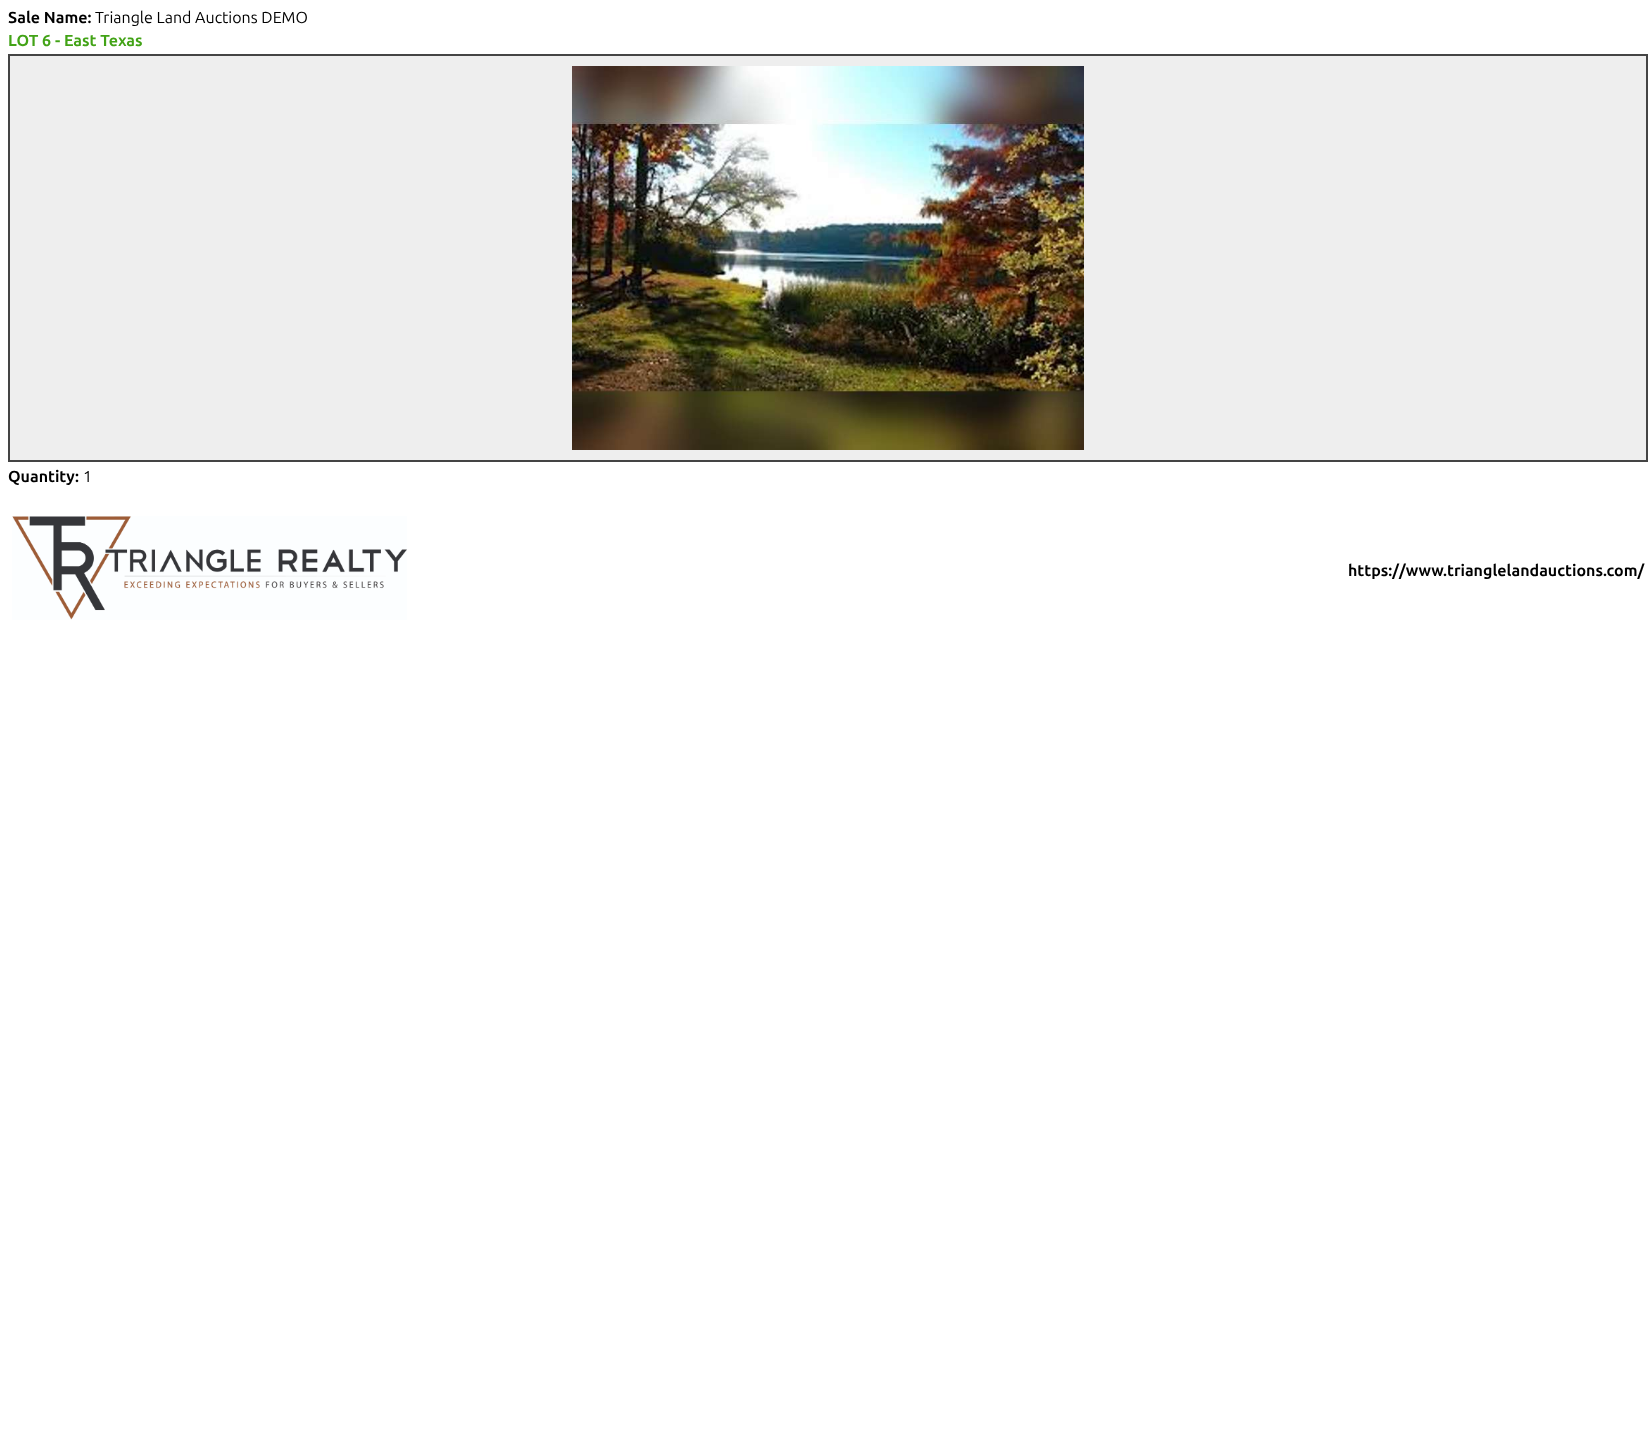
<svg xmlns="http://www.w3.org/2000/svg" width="1652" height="1442">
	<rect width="100%" height="100%" fill="#FFFFFF" />
	<text x="8" y="23" font-family="Ubuntu" font-size="16" font-weight="700" fill="#000000">Sale Name:</text>
	<text x="95" y="23" font-family="Ubuntu" font-size="16" fill="#000000">Triangle Land Auctions DEMO</text>
	<text x="8" y="46" font-family="Ubuntu" font-size="16" font-weight="700" fill="#42A316">LOT 6 - East Texas</text>
	<rect x="9" y="55" width="1638" height="406" fill="#EEEEEE" stroke="#444444" stroke-width="2" />
	<image x="572" y="66" width="512" height="384" href="assets/img1.png" />
	<text x="8" y="482" font-family="Ubuntu" font-size="16" font-weight="700" fill="#000000">Quantity:</text>
	<text x="83" y="482" font-family="Ubuntu" font-size="16" fill="#000000">1</text>
	<image x="12" y="516" width="395" height="104" href="assets/img2.png" />
	<text x="1348" y="576" font-family="Ubuntu" font-size="16" font-weight="700" fill="#000000">https://www.trianglelandauctions.com/</text>
</svg>
